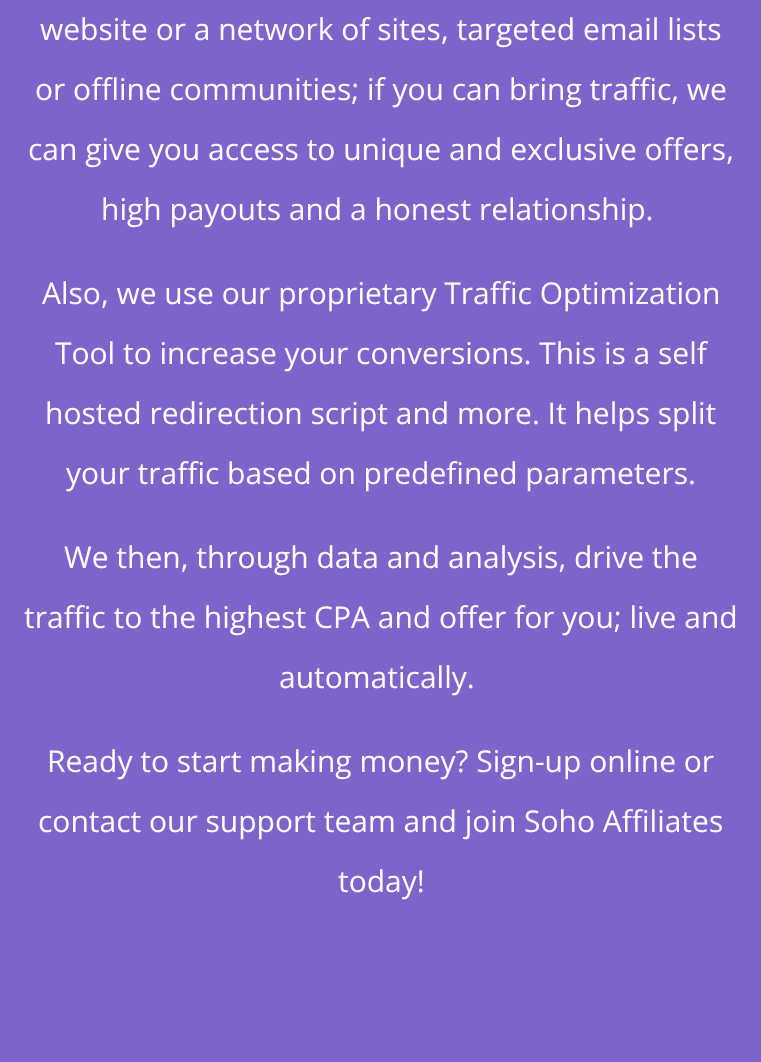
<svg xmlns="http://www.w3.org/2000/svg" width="761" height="1062">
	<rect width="100%" height="100%" fill="#7E63CA" />
	<g font-family="Open Sans" font-size="30" fill="#FFFFFF">
		<text x="40" y="40">website or a network of sites, targeted email lists</text>
		<text x="35" y="100">or offline communities; if you can bring traffic, we</text>
		<text x="28" y="160">can give you access to unique and exclusive offers,</text>
		<text x="101" y="220">high payouts and a honest relationship.</text>
		<text x="42" y="304">Also, we use our proprietary Traffic Optimization</text>
		<text x="55" y="364">Tool to increase your conversions. This is a self</text>
		<text x="45" y="424">hosted redirection script and more. It helps split</text>
		<text x="66" y="484">your traffic based on predefined parameters.</text>
		<text x="64" y="568">We then, through data and analysis, drive the</text>
		<text x="24" y="628">traffic to the highest CPA and offer for you; live and</text>
		<text x="279" y="688">automatically.</text>
		<text x="47" y="772">Ready to start making money? Sign-up online or</text>
		<text x="38" y="832">contact our support team and join Soho Affiliates</text>
		<text x="338" y="892">today!</text>
	</g>
</svg>
